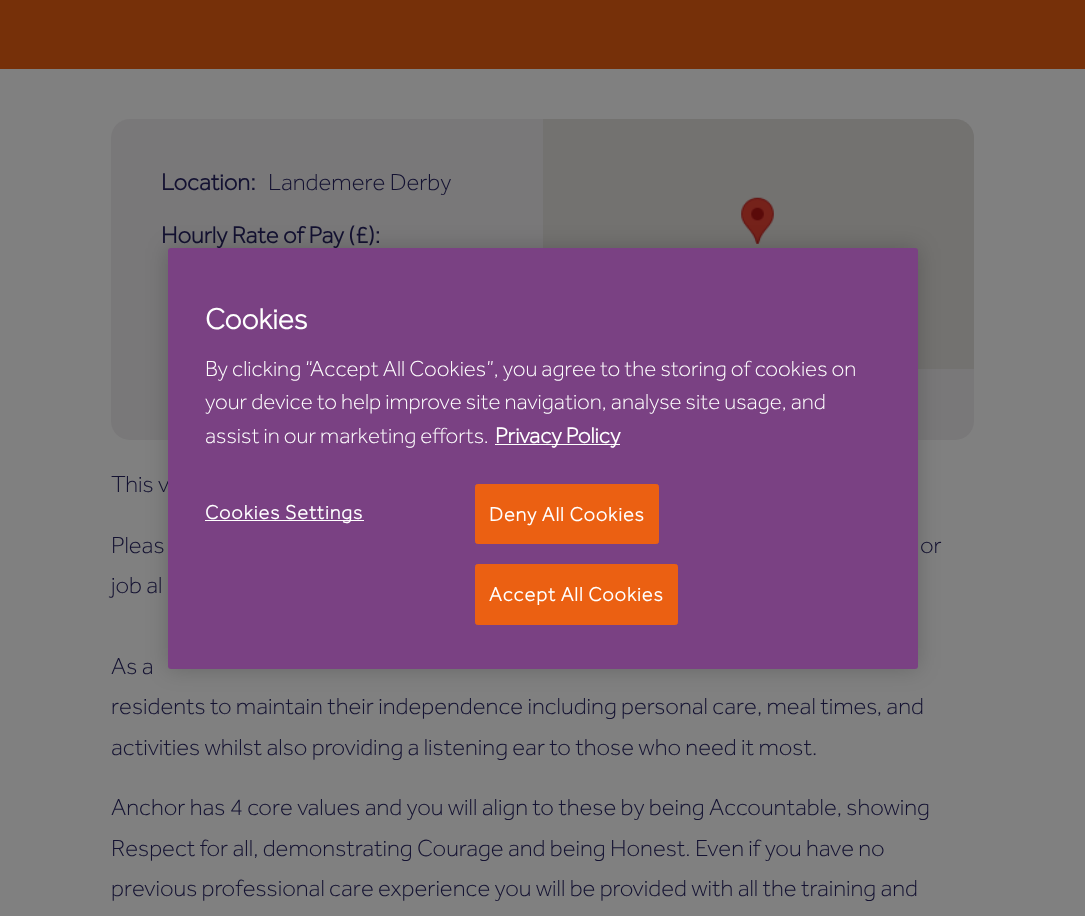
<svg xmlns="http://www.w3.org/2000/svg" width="1085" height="916">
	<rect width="100%" height="100%" fill="#808080" />
	<rect x="0" y="0" width="1085" height="69" fill="#763009" />
	<rect x="111" y="119" width="863" height="321" rx="19" fill="#797879" />
	<text x="161" y="190" font-family="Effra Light" font-size="24" font-weight="700" fill="#131131">Location:</text>
	<text x="268" y="190" font-family="Effra Light" font-size="24" font-weight="300" fill="#131131">Landemere Derby</text>
	<text x="161" y="243" font-family="Effra Light" font-size="24" font-weight="700" fill="#131131">Hourly Rate of Pay (£):</text>
	<path d="M543 119H955C965.5 119 974 127.5 974 138V369H543Z" fill="#737270" />
	<image x="741" y="197" width="33" height="47" href="assets/img1.png" />
	<g font-family="Effra Light" font-size="24" font-weight="300" fill="#131131">
		<text x="111" y="492">This v</text>
		<text x="111" y="553">Pleas</text>
		<text x="920" y="553">or</text>
		<text x="111" y="593">job al</text>
		<text x="111" y="674">As a</text>
		<text x="111" y="714">residents to maintain their independence including personal care, meal times, and</text>
		<text x="111" y="755">activities whilst also providing a listening ear to those who need it most.</text>
		<text x="111" y="815">Anchor has 4 core values and you will align to these by being Accountable, showing</text>
		<text x="111" y="856">Respect for all, demonstrating Courage and being Honest. Even if you have no</text>
		<text x="111" y="896">previous professional care experience you will be provided with all the training and</text>
	</g>
	<rect x="168" y="248" width="750" height="421" rx="3" fill="#000000" fill-opacity="0.2" filter="blur(11px)" />
	<rect x="168" y="248" width="750" height="421" rx="3" fill="#7A4183" />
	<text x="205" y="329" font-family="Effra Light" font-size="30" font-weight="700" fill="#FFFFFF">Cookies</text>
	<g font-family="Effra Light" font-size="22.5" font-weight="300" fill="#FFFFFF">
		<text x="205" y="376">By clicking “Accept All Cookies”, you agree to the storing of cookies on</text>
		<text x="205" y="409">your device to help improve site navigation, analyse site usage, and</text>
		<text x="205" y="443">assist in our marketing efforts.</text>
	</g>
	<rect x="495" y="444" width="125" height="1" fill="#FFFFFF" />
	<text x="495" y="443" font-family="Effra Light" font-size="22.5" font-weight="700" fill="#FFFFFF">Privacy Policy</text>
	<rect x="205" y="520" width="159" height="1" fill="#FFFFFF" />
	<text x="205" y="519" font-family="Effra Light" font-size="20" font-weight="700" letter-spacing="1" fill="#FFFFFF">Cookies Settings</text>
	<rect x="475.5" y="484.5" width="183" height="59" rx="2" fill="#EB6012" stroke="#EB6012" />
	<text x="489" y="521" font-family="Effra Light" font-size="20" font-weight="700" letter-spacing="1" fill="#FFFFFF">Deny All Cookies</text>
	<rect x="475.5" y="564.5" width="202" height="60" rx="2" fill="#EB6012" stroke="#EB6012" />
	<text x="489" y="601" font-family="Effra Light" font-size="20" font-weight="700" letter-spacing="1" fill="#FFFFFF">Accept All Cookies</text>
</svg>
